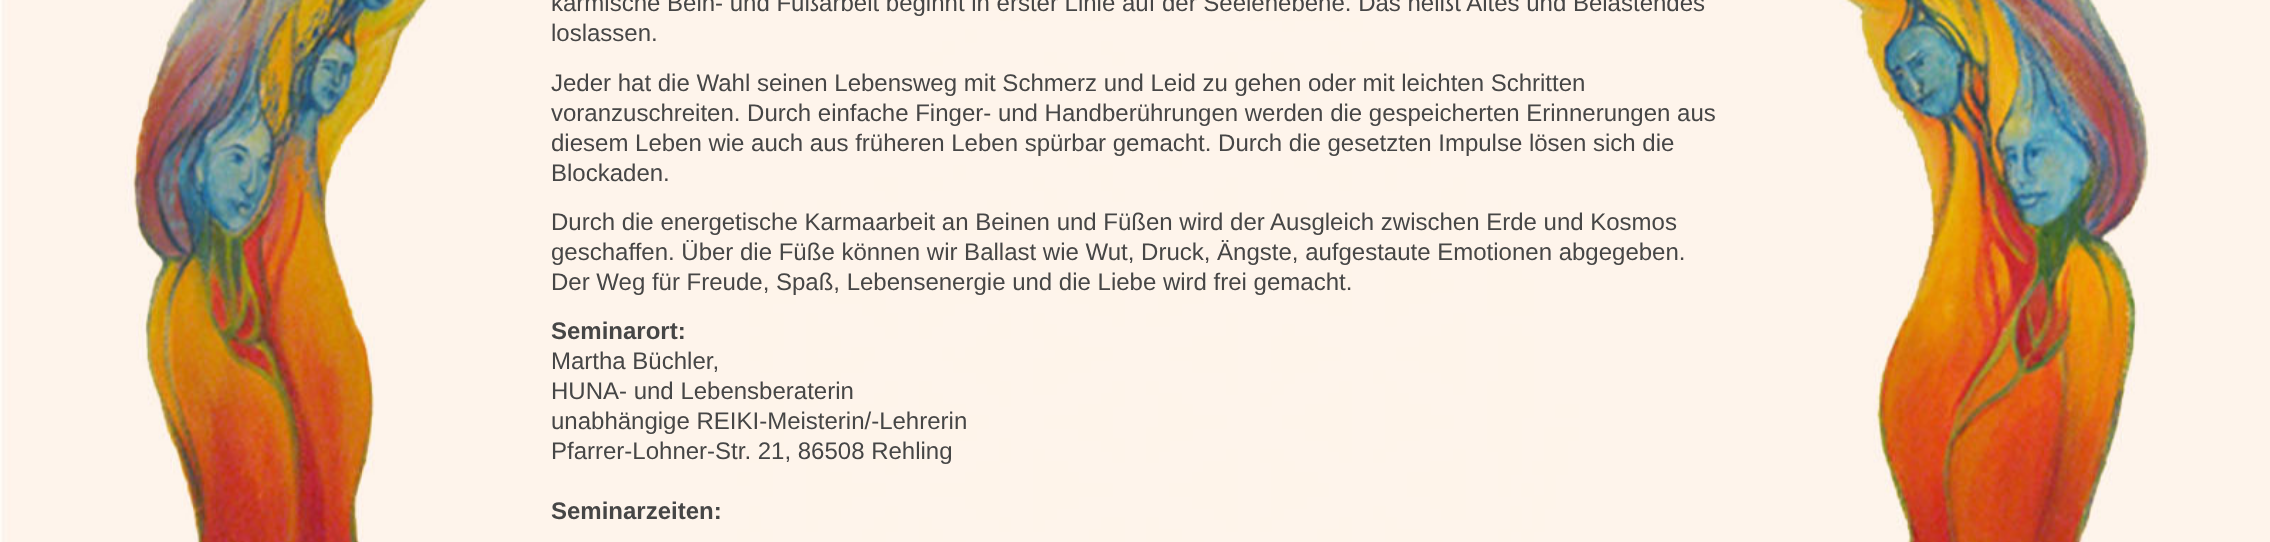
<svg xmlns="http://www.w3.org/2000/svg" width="2270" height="542">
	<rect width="100%" height="100%" fill="#FFFFFF" />
	<image x="0" y="0" width="2270" height="542" href="assets/img1.png" />
	<g font-family="Liberation Sans" font-size="24" fill="#464646">
		<text x="551" y="11">karmische Bein- und Fußarbeit beginnt in erster Linie auf der Seelenebene. Das heißt Altes und Belastendes</text>
		<text x="551" y="41">loslassen.</text>
		<text x="551" y="91">Jeder hat die Wahl seinen Lebensweg mit Schmerz und Leid zu gehen oder mit leichten Schritten</text>
		<text x="551" y="121">voranzuschreiten. Durch einfache Finger- und Handberührungen werden die gespeicherten Erinnerungen aus</text>
		<text x="551" y="151">diesem Leben wie auch aus früheren Leben spürbar gemacht. Durch die gesetzten Impulse lösen sich die</text>
		<text x="551" y="181">Blockaden.</text>
		<text x="551" y="230">Durch die energetische Karmaarbeit an Beinen und Füßen wird der Ausgleich zwischen Erde und Kosmos</text>
		<text x="551" y="260">geschaffen. Über die Füße können wir Ballast wie Wut, Druck, Ängste, aufgestaute Emotionen abgegeben.</text>
		<text x="551" y="290">Der Weg für Freude, Spaß, Lebensenergie und die Liebe wird frei gemacht.</text>
	</g>
	<text x="551" y="339" font-family="Liberation Sans" font-size="24" font-weight="700" fill="#464646">Seminarort:</text>
	<g font-family="Liberation Sans" font-size="24" fill="#464646">
		<text x="551" y="369">Martha Büchler,</text>
		<text x="551" y="399">HUNA- und Lebensberaterin</text>
		<text x="551" y="429">unabhängige REIKI-Meisterin/-Lehrerin</text>
		<text x="551" y="459">Pfarrer-Lohner-Str. 21, 86508 Rehling</text>
	</g>
	<text x="551" y="519" font-family="Liberation Sans" font-size="24" font-weight="700" fill="#464646">Seminarzeiten:</text>
</svg>
